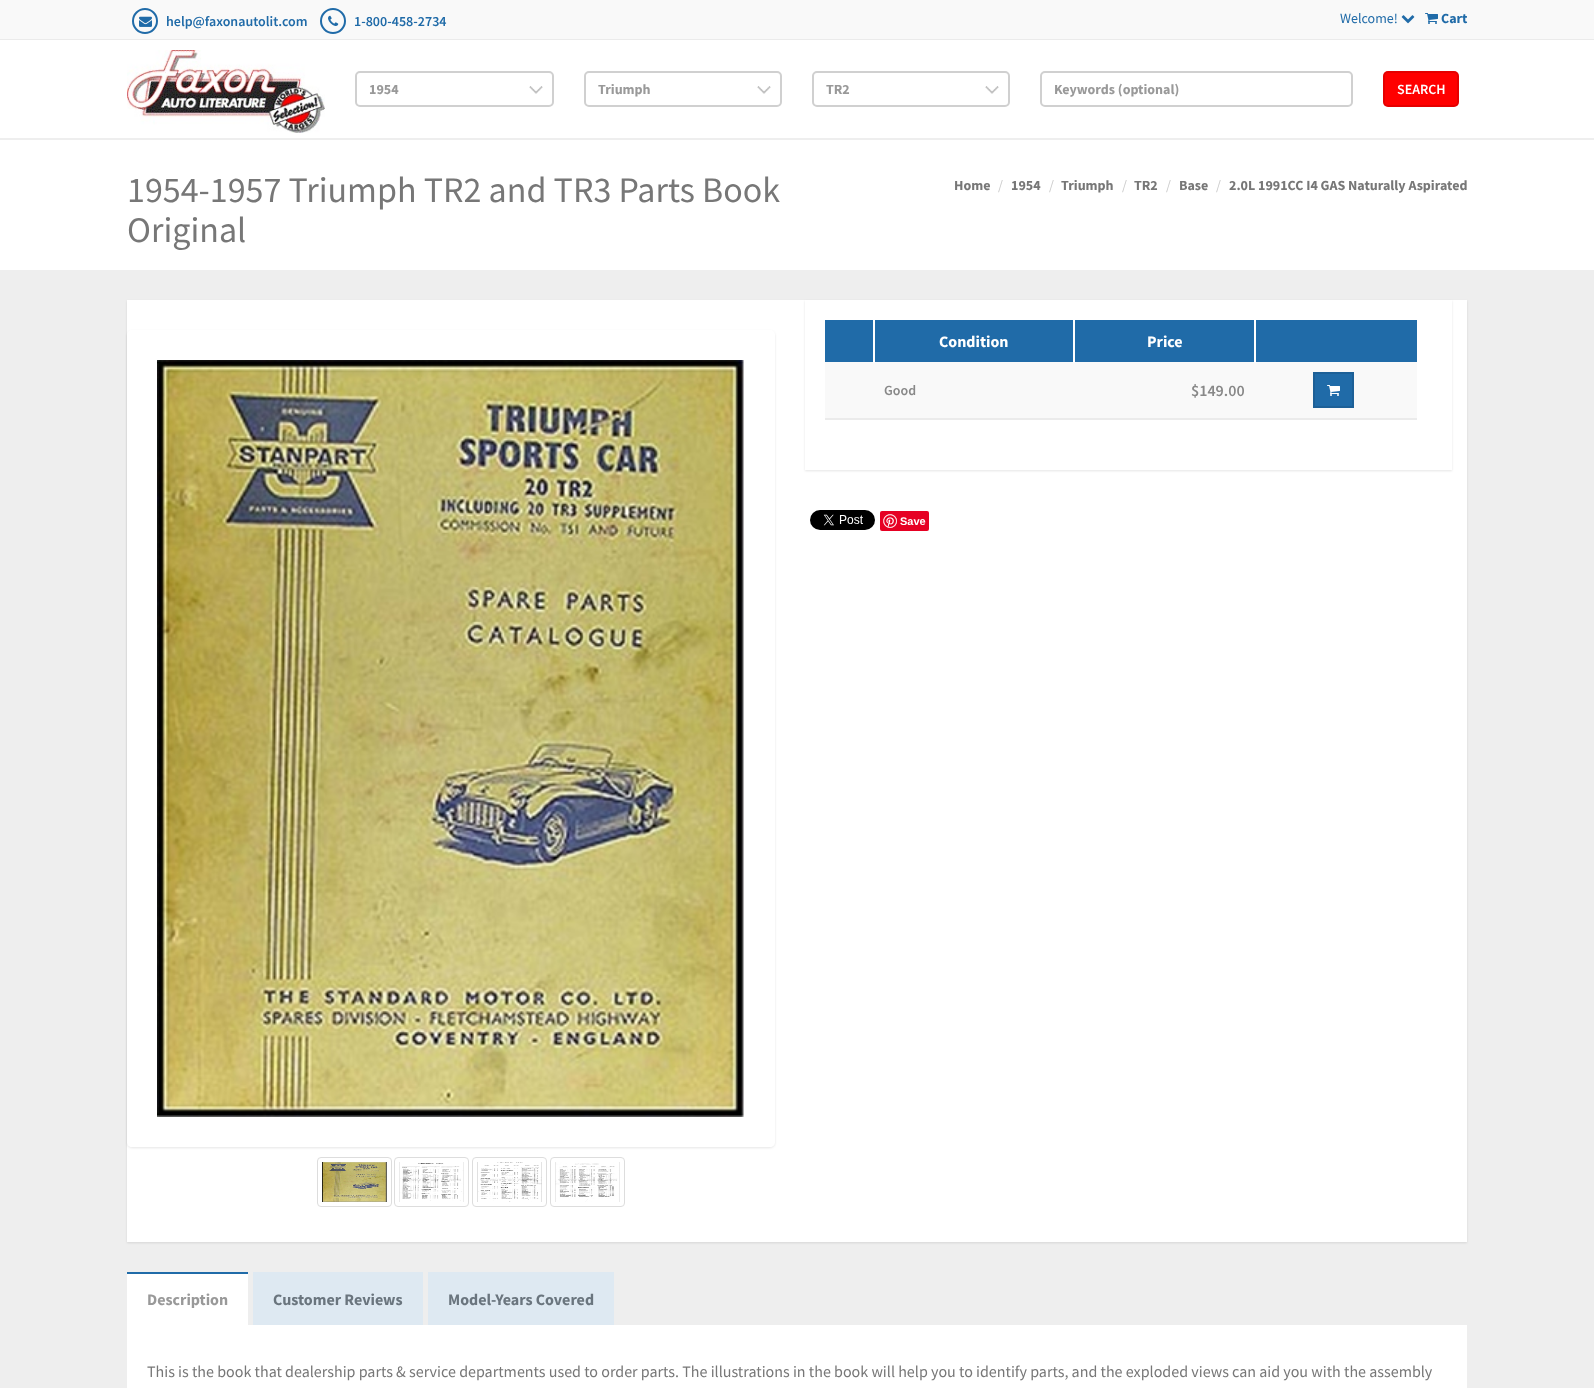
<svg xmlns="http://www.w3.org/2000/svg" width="1594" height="1388">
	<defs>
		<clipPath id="clip1"><path d="M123 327H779V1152H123ZM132 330H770C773 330 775 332 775 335V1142C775 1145 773 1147 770 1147H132C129 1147 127 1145 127 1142V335C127 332 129 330 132 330Z" clip-rule="evenodd" /></clipPath>
		<clipPath id="clip2"><path d="M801 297H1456V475H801ZM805 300H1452V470H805Z" clip-rule="evenodd" /></clipPath>
	</defs>
	<rect width="100%" height="100%" fill="#EEEEEE" />
	<rect x="0" y="0" width="1594" height="39" fill="#F9F9F9" />
	<rect x="0" y="39" width="1594" height="1" fill="#EBEBEB" />
	<circle cx="145" cy="21" r="12" fill="none" stroke="#206BA8" stroke-width="2" />
	<image x="139" y="16" width="13" height="11" href="assets/img1.png" />
	<text x="166" y="26" font-family="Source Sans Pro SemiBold" font-size="14" font-weight="600" fill="#206BA8">help@faxonautolit.com</text>
	<circle cx="333" cy="21" r="12" fill="none" stroke="#206BA8" stroke-width="2" />
	<image x="328" y="15" width="11" height="11" href="assets/img2.png" />
	<text x="354" y="26" font-family="Source Sans Pro SemiBold" font-size="14" font-weight="600" fill="#206BA8">1-800-458-2734</text>
	<text x="1340" y="23" font-family="Source Sans Pro" font-size="14" fill="#206BA8">Welcome!</text>
	<image x="1401" y="15" width="14" height="9" href="assets/img3.png" />
	<image x="1425" y="13" width="13" height="11" href="assets/img4.png" />
	<text x="1441" y="23" font-family="Source Sans Pro" font-size="14" font-weight="700" fill="#206BA8">Cart</text>
	<rect x="0" y="40" width="1594" height="98" fill="#FFFFFF" />
	<image x="127" y="50" width="198" height="83" href="assets/img5.png" />
	<image x="529" y="86" width="14" height="8" href="assets/img6.png" />
	<rect x="356" y="72" width="197" height="34" rx="4" fill="none" stroke="#D0D0D0" stroke-width="2" />
	<text x="369" y="94" font-family="Source Sans Pro" font-size="14" font-weight="700" fill="#999999">1954</text>
	<image x="757" y="86" width="14" height="8" href="assets/img6.png" />
	<rect x="585" y="72" width="196" height="34" rx="4" fill="none" stroke="#D0D0D0" stroke-width="2" />
	<text x="598" y="94" font-family="Source Sans Pro" font-size="14" font-weight="700" fill="#999999">Triumph</text>
	<image x="985" y="86" width="14" height="8" href="assets/img6.png" />
	<rect x="813" y="72" width="196" height="34" rx="4" fill="none" stroke="#D0D0D0" stroke-width="2" />
	<text x="826" y="94" font-family="Source Sans Pro" font-size="14" font-weight="700" fill="#999999">TR2</text>
	<rect x="1041" y="72" width="311" height="34" rx="4" fill="none" stroke="#D0D0D0" stroke-width="2" />
	<text x="1054" y="94" font-family="Source Sans Pro" font-size="14" font-weight="700" fill="#999999">Keywords (optional)</text>
	<rect x="1383" y="71" width="76" height="36" rx="5" fill="#FF0000" />
	<rect x="1384" y="72" width="74" height="34" rx="4" fill="none" stroke="#000000" stroke-opacity="0.1" stroke-width="2" />
	<text x="1397" y="94" font-family="Source Sans Pro SemiBold" font-size="14" font-weight="600" fill="#FFFFFF">SEARCH</text>
	<rect x="0" y="140" width="1594" height="130" fill="#FFFFFF" />
	<g font-family="Source Sans Pro" font-size="36" fill="#777777">
		<text x="127" y="202">1954-1957 Triumph TR2 and TR3 Parts Book</text>
		<text x="127" y="242">Original</text>
	</g>
	<text x="954" y="190" font-family="Source Sans Pro" font-size="14" font-weight="700" fill="#777777">Home</text>
	<text x="998" y="190" font-family="Source Sans Pro" font-size="14" fill="#CCCCCC">/</text>
	<text x="1011" y="190" font-family="Source Sans Pro" font-size="14" font-weight="700" fill="#777777">1954</text>
	<text x="1049" y="190" font-family="Source Sans Pro" font-size="14" fill="#CCCCCC">/</text>
	<text x="1061" y="190" font-family="Source Sans Pro" font-size="14" font-weight="700" fill="#777777">Triumph</text>
	<text x="1122" y="190" font-family="Source Sans Pro" font-size="14" fill="#CCCCCC">/</text>
	<text x="1134" y="190" font-family="Source Sans Pro" font-size="14" font-weight="700" fill="#777777">TR2</text>
	<text x="1166" y="190" font-family="Source Sans Pro" font-size="14" fill="#CCCCCC">/</text>
	<text x="1179" y="190" font-family="Source Sans Pro" font-size="14" font-weight="700" fill="#777777">Base</text>
	<text x="1216" y="190" font-family="Source Sans Pro" font-size="14" fill="#CCCCCC">/</text>
	<text x="1229" y="190" font-family="Source Sans Pro" font-size="14" font-weight="700" fill="#777777">2.0L 1991CC I4 GAS Naturally Aspirated</text>
	<rect x="127" y="301" width="1340" height="942" fill="#000000" fill-opacity="0.1" filter="blur(1px)" />
	<rect x="127" y="300" width="1340" height="942" fill="#FFFFFF" />
	<g clip-path="url(#clip1)">
		<rect x="127" y="331" width="648" height="817" rx="5" fill="#000000" fill-opacity="0.1" filter="blur(1px)" />
	</g>
	<image x="157" y="360" width="587" height="757" href="assets/img7.png" />
	<rect x="317.5" y="1157.5" width="74" height="49" rx="3.5" fill="none" stroke="#DDDDDD" />
	<image x="322" y="1162" width="65" height="40" href="assets/img8.png" />
	<rect x="394.5" y="1157.5" width="74" height="49" rx="3.5" fill="none" stroke="#DDDDDD" />
	<image x="399" y="1162" width="65" height="40" href="assets/img9.png" />
	<rect x="472.5" y="1157.5" width="74" height="49" rx="3.5" fill="none" stroke="#DDDDDD" />
	<image x="477" y="1162" width="65" height="40" href="assets/img10.png" />
	<rect x="550.5" y="1157.5" width="74" height="49" rx="3.5" fill="none" stroke="#DDDDDD" />
	<image x="555" y="1162" width="65" height="40" href="assets/img11.png" />
	<g clip-path="url(#clip2)">
		<rect x="805" y="301" width="647" height="170" fill="#000000" fill-opacity="0.1" filter="blur(1px)" />
	</g>
	<rect x="825" y="418" width="592" height="2" fill="#EBEBEB" />
	<rect x="825" y="320" width="48" height="42" fill="#206BA8" />
	<rect x="825" y="362" width="592" height="56" fill="#F9F9F9" />
	<rect x="873" y="362" width="2" height="1" fill="#FFFFFF" />
	<rect x="875" y="320" width="198" height="42" fill="#206BA8" />
	<rect x="1073" y="362" width="2" height="1" fill="#FFFFFF" />
	<text x="939" y="347" font-family="Source Sans Pro" font-size="16" font-weight="700" fill="#FFFFFF">Condition</text>
	<rect x="1075" y="320" width="179" height="42" fill="#206BA8" />
	<rect x="1254" y="362" width="2" height="1" fill="#FFFFFF" />
	<text x="1147" y="347" font-family="Source Sans Pro" font-size="16" font-weight="700" fill="#FFFFFF">Price</text>
	<rect x="1256" y="320" width="161" height="42" fill="#206BA8" />
	<text x="884" y="395" font-family="Source Sans Pro SemiBold" font-size="14" font-weight="600" fill="#888888">Good</text>
	<text x="1191" y="396" font-family="Source Sans Pro SemiBold" font-size="16" font-weight="600" fill="#888888">$149.00</text>
	<rect x="1314" y="373" width="39" height="34" fill="#206BA8" stroke="#1D6097" stroke-width="2" />
	<image x="1327" y="385" width="13" height="11" href="assets/img12.png" />
	<image x="810" y="510" width="65" height="20" href="assets/img13.png" />
	<rect x="880" y="511" width="49" height="20" rx="2" fill="#E60023" />
	<image x="883" y="514" width="14" height="14" href="assets/img14.png" />
	<text x="900" y="525" font-family="Liberation Sans" font-size="11" font-weight="700" fill="#FFFFFF">Save</text>
	<rect x="127" y="1274" width="121" height="51" fill="#FFFFFF" />
	<rect x="127" y="1272" width="121" height="2" fill="#206BA8" />
	<text x="147" y="1305" font-family="Source Sans Pro" font-size="16" font-weight="700" fill="#999999">Description</text>
	<rect x="253" y="1272" width="170" height="53" fill="#DEE9F2" />
	<text x="273" y="1305" font-family="Source Sans Pro" font-size="16" font-weight="700" fill="#6A757E">Customer Reviews</text>
	<rect x="428" y="1272" width="186" height="53" fill="#DEE9F2" />
	<text x="448" y="1305" font-family="Source Sans Pro" font-size="16" font-weight="700" fill="#6A757E">Model-Years Covered</text>
	<rect x="127" y="1325" width="1340" height="63" fill="#FFFFFF" />
	<text x="147" y="1377" font-family="Source Sans Pro" font-size="16" fill="#777777">This is the book that dealership parts &amp; service departments used to order parts. The illustrations in the book will help you to identify parts, and the exploded views can aid you with the assembly</text>
</svg>
